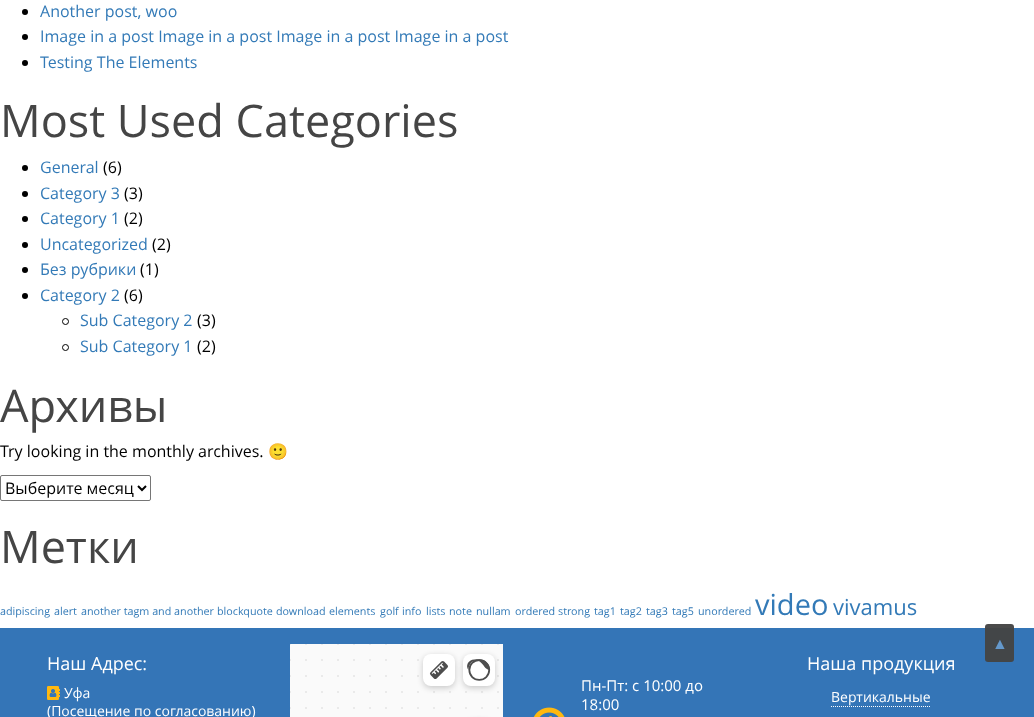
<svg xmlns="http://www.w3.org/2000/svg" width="1034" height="717">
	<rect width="100%" height="100%" fill="#FFFFFF" />
	<circle cx="25" cy="12" r="3" fill="#000000" />
	<text x="40" y="17" font-family="Open Sans" font-size="16" fill="#337AB7">Another post, woo</text>
	<circle cx="25" cy="37" r="3" fill="#000000" />
	<text x="40" y="42" font-family="Open Sans" font-size="16" fill="#337AB7">Image in a post Image in a post Image in a post Image in a post</text>
	<circle cx="25" cy="63" r="3" fill="#000000" />
	<text x="40" y="68" font-family="Open Sans" font-size="16" fill="#337AB7">Testing The Elements</text>
	<text x="0" y="137" font-family="Open Sans" font-size="45" fill="#454545">Most Used Categories</text>
	<circle cx="25" cy="168" r="3" fill="#000000" />
	<text x="40" y="173" font-family="Open Sans" font-size="16" fill="#337AB7">General</text>
	<text x="103" y="173" font-family="Open Sans" font-size="16" fill="#000000">(6)</text>
	<circle cx="25" cy="194" r="3" fill="#000000" />
	<text x="40" y="199" font-family="Open Sans" font-size="16" fill="#337AB7">Category 3</text>
	<text x="124" y="199" font-family="Open Sans" font-size="16" fill="#000000">(3)</text>
	<circle cx="25" cy="219" r="3" fill="#000000" />
	<text x="40" y="224" font-family="Open Sans" font-size="16" fill="#337AB7">Category 1</text>
	<text x="124" y="224" font-family="Open Sans" font-size="16" fill="#000000">(2)</text>
	<circle cx="25" cy="245" r="3" fill="#000000" />
	<text x="40" y="250" font-family="Open Sans" font-size="16" fill="#337AB7">Uncategorized</text>
	<text x="152" y="250" font-family="Open Sans" font-size="16" fill="#000000">(2)</text>
	<circle cx="25" cy="270" r="3" fill="#000000" />
	<text x="40" y="275" font-family="Open Sans" font-size="16" fill="#337AB7">Без рубрики</text>
	<text x="140" y="275" font-family="Open Sans" font-size="16" fill="#000000">(1)</text>
	<circle cx="25" cy="296" r="3" fill="#000000" />
	<text x="40" y="301" font-family="Open Sans" font-size="16" fill="#337AB7">Category 2</text>
	<text x="124" y="301" font-family="Open Sans" font-size="16" fill="#000000">(6)</text>
	<circle cx="65.5" cy="321.5" r="3" fill="none" stroke="#000000" />
	<text x="80" y="326" font-family="Open Sans" font-size="16" fill="#337AB7">Sub Category 2</text>
	<text x="197" y="326" font-family="Open Sans" font-size="16" fill="#000000">(3)</text>
	<circle cx="65.5" cy="347.5" r="3" fill="none" stroke="#000000" />
	<text x="80" y="352" font-family="Open Sans" font-size="16" fill="#337AB7">Sub Category 1</text>
	<text x="197" y="352" font-family="Open Sans" font-size="16" fill="#000000">(2)</text>
	<text x="0" y="422" font-family="Open Sans" font-size="45" fill="#454545">Архивы</text>
	<text x="0" y="457" font-family="Open Sans" font-size="16" fill="#000000">Try looking in the monthly archives.</text>
	<text x="268" y="457" font-family="Noto Color Emoji" font-size="16" fill="#000000">🙂</text>
	<rect x="0.5" y="475.5" width="150" height="25" rx="1.5" fill="none" stroke="#767676" />
	<path d="M138 486L142 490L146 486" fill="none" stroke="#000000" stroke-width="2" />
	<text x="5" y="494" font-family="Open Sans" font-size="16" fill="#000000">Выберите месяц</text>
	<text x="0" y="563" font-family="Open Sans" font-size="45" fill="#454545">Метки</text>
	<g font-family="Open Sans" font-size="10.75" fill="#337AB7">
		<text x="0" y="615">adipiscing</text>
		<text x="54" y="615">alert</text>
		<text x="81" y="615">another tagm and another</text>
		<text x="217" y="615">blockquote</text>
		<text x="276" y="615">download</text>
		<text x="329" y="615">elements</text>
		<text x="380" y="615">golf</text>
		<text x="402" y="615">info</text>
		<text x="426" y="615">lists</text>
		<text x="449" y="615">note</text>
		<text x="476" y="615">nullam</text>
		<text x="515" y="615">ordered</text>
		<text x="558" y="615">strong</text>
		<text x="594" y="615">tag1</text>
		<text x="620" y="615">tag2</text>
		<text x="646" y="615">tag3</text>
		<text x="672" y="615">tag5</text>
		<text x="698" y="615">unordered</text>
	</g>
	<text x="755" y="615" font-family="Open Sans" font-size="29" fill="#337AB7">video</text>
	<text x="833" y="615" font-family="Open Sans" font-size="22" fill="#337AB7">vivamus</text>
	<rect x="0" y="628" width="1034" height="89" fill="#3475B7" />
	<rect x="985" y="624" width="29" height="38" rx="3" fill="#444444" fill-opacity="0.96" />
	<text x="992" y="649" font-family="Liberation Serif" font-size="16" fill="#6498CB">▲</text>
	<text x="47" y="670" font-family="Open Sans" font-size="18" fill="#FFFFFF">Наш Адрес:</text>
	<image x="47" y="686" width="13" height="14" href="assets/img1.png" />
	<g font-family="Open Sans" font-size="14" fill="#FFFFFF">
		<text x="64" y="698">Уфа</text>
		<text x="47" y="716">(Посещение по согласованию)</text>
	</g>
	<image x="290" y="644" width="213" height="73" href="assets/img2.png" />
	<g font-family="Open Sans" font-size="15" fill="#FFFFFF">
		<text x="581" y="691">Пн-Пт: с 10:00 до</text>
		<text x="581" y="710">18:00</text>
	</g>
	<image x="533" y="707" width="32" height="10" href="assets/img3.png" />
	<text x="807" y="670" font-family="Open Sans" font-size="18" fill="#FFFFFF">Наша продукция</text>
	<text x="831" y="702" font-family="Open Sans" font-size="14" fill="#FFFFFF">Вертикальные</text>
	<path d="M831 706.5H931" fill="none" stroke="#FFFFFF" stroke-dasharray="1 1" />
</svg>
